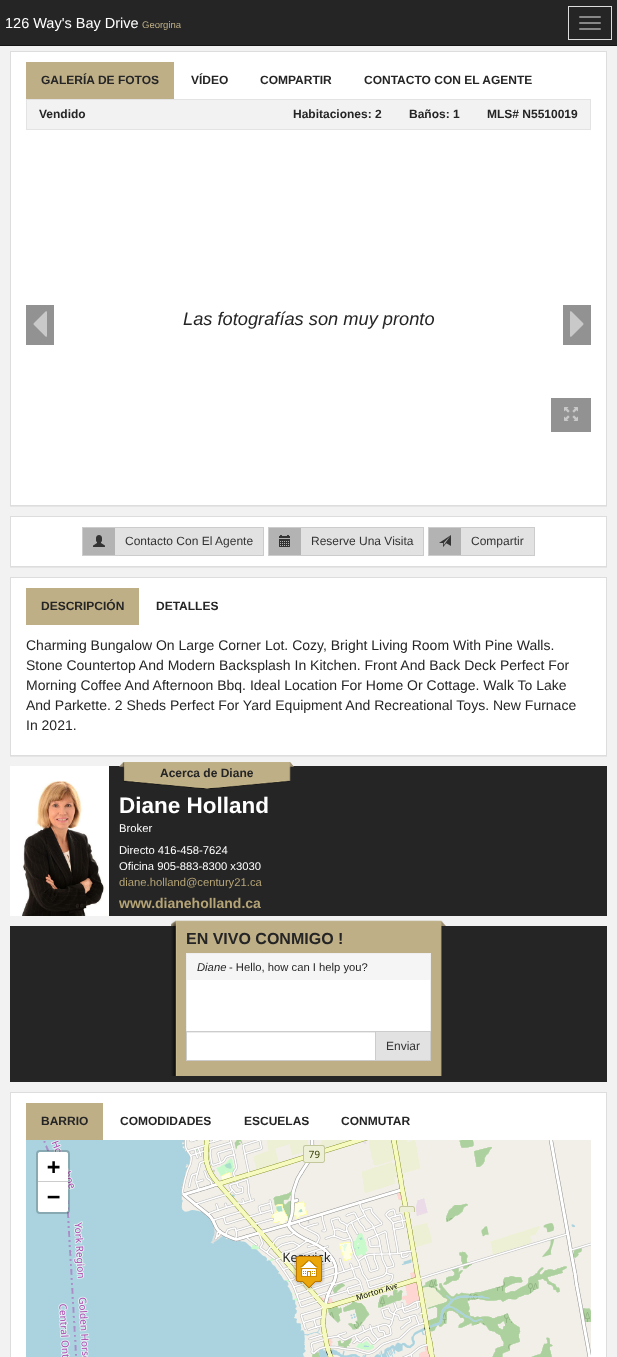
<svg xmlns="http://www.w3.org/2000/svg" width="617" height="1357">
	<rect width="100%" height="100%" fill="#F2F2F2" />
	<rect x="0" y="0" width="617" height="45" fill="#252526" />
	<rect x="0" y="45" width="617" height="1" fill="#151515" />
	<text x="5" y="28" font-family="Liberation Sans" font-size="14.5" fill="#FFFFFF">126 Way's Bay Drive</text>
	<text x="142" y="28" font-family="Liberation Sans" font-size="9.5" fill="#BEAF87">Georgina</text>
	<rect x="568.5" y="6.5" width="43" height="33" fill="none" stroke="#DDDDDD" />
	<rect x="579" y="16" width="22" height="2" rx="1" fill="#888888" />
	<rect x="579" y="22" width="22" height="2" rx="1" fill="#888888" />
	<rect x="579" y="28" width="22" height="2" rx="1" fill="#888888" />
	<rect x="10" y="52" width="597" height="455" fill="#000000" fill-opacity="0.05" filter="blur(0.5px)" />
	<rect x="10.5" y="51.5" width="596" height="454" fill="#FFFFFF" stroke="#DDDDDD" />
	<rect x="26" y="62" width="148" height="37" fill="#BEAF87" />
	<g font-family="Liberation Sans" font-size="12" font-weight="700" fill="#252526">
		<text x="41" y="84">GALERÍA DE FOTOS</text>
		<text x="191" y="84">VÍDEO</text>
		<text x="260" y="84">COMPARTIR</text>
		<text x="364" y="84">CONTACTO CON EL AGENTE</text>
	</g>
	<rect x="26.5" y="99.5" width="564" height="30" fill="#F2F2F2" stroke="#E3E3E3" />
	<g font-family="Liberation Sans" font-size="12" font-weight="700" fill="#252526">
		<text x="39" y="118">Vendido</text>
		<text x="293" y="118">Habitaciones: 2</text>
		<text x="409" y="118">Baños: 1</text>
		<text x="487" y="118">MLS# N5510019</text>
	</g>
	<rect x="26" y="305" width="28" height="40" fill="#929293" />
	<image x="33" y="311" width="14" height="26" href="assets/img1.png" />
	<text x="183" y="325" font-family="Liberation Sans" font-size="18.25" font-style="italic" fill="#252526">Las fotografías son muy pronto</text>
	<rect x="563" y="305" width="28" height="40" fill="#929293" />
	<image x="570" y="311" width="14" height="26" href="assets/img2.png" />
	<rect x="551" y="398" width="40" height="34" fill="#929293" />
	<image x="564" y="407" width="14" height="14" href="assets/img3.png" />
	<rect x="10" y="517" width="597" height="51" fill="#000000" fill-opacity="0.05" filter="blur(0.5px)" />
	<rect x="10.5" y="516.5" width="596" height="50" fill="#FFFFFF" stroke="#DDDDDD" />
	<rect x="115" y="528" width="148" height="27" fill="#E2E2E2" />
	<rect x="82.5" y="527.5" width="181" height="28" fill="none" stroke="#CCCCCC" />
	<rect x="83" y="528" width="32" height="27" fill="#B3B3B3" />
	<image x="93" y="535" width="12" height="12" href="assets/img4.png" />
	<text x="125" y="545" font-family="Liberation Sans" font-size="12" fill="#333333">Contacto Con El Agente</text>
	<rect x="301" y="528" width="122" height="27" fill="#E2E2E2" />
	<rect x="268.5" y="527.5" width="155" height="28" fill="none" stroke="#CCCCCC" />
	<rect x="269" y="528" width="32" height="27" fill="#B3B3B3" />
	<image x="279" y="535" width="11" height="12" href="assets/img5.png" />
	<text x="311" y="545" font-family="Liberation Sans" font-size="12" fill="#333333">Reserve Una Visita</text>
	<rect x="461" y="528" width="73" height="27" fill="#E2E2E2" />
	<rect x="428.5" y="527.5" width="106" height="28" fill="none" stroke="#CCCCCC" />
	<rect x="429" y="528" width="32" height="27" fill="#B3B3B3" />
	<image x="439" y="535" width="12" height="12" href="assets/img6.png" />
	<text x="471" y="545" font-family="Liberation Sans" font-size="12" fill="#333333">Compartir</text>
	<rect x="10" y="578" width="597" height="179" fill="#000000" fill-opacity="0.05" filter="blur(0.5px)" />
	<rect x="10.5" y="577.5" width="596" height="178" fill="#FFFFFF" stroke="#DDDDDD" />
	<rect x="26" y="588" width="113" height="37" fill="#BEAF87" />
	<g font-family="Liberation Sans" font-size="12" font-weight="700" fill="#252526">
		<text x="41" y="610">DESCRIPCIÓN</text>
		<text x="156" y="610">DETALLES</text>
	</g>
	<g font-family="Liberation Sans" font-size="14" fill="#252526">
		<text x="26" y="650">Charming Bungalow On Large Corner Lot. Cozy, Bright Living Room With Pine Walls.</text>
		<text x="26" y="670">Stone Countertop And Modern Backsplash In Kitchen. Front And Back Deck Perfect For</text>
		<text x="26" y="690">Morning Coffee And Afternoon Bbq. Ideal Location For Home Or Cottage. Walk To Lake</text>
		<text x="26" y="710">And Parkette. 2 Sheds Perfect For Yard Equipment And Recreational Toys. New Furnace</text>
		<text x="26" y="730">In 2021.</text>
	</g>
	<rect x="109" y="766" width="498" height="150" fill="#252526" />
	<image x="10" y="766" width="99" height="150" href="assets/img7.png" />
	<image x="119" y="762" width="175" height="27" href="assets/img8.png" />
	<text x="160" y="777" font-family="Liberation Sans" font-size="12" font-weight="700" fill="#252526">Acerca de Diane</text>
	<text x="119" y="813" font-family="Liberation Sans" font-size="22.5" font-weight="700" fill="#FFFFFF">Diane Holland</text>
	<g font-family="Liberation Sans" font-size="11.25" fill="#FFFFFF">
		<text x="119" y="832">Broker</text>
		<text x="119" y="854">Directo 416-458-7624</text>
		<text x="119" y="870">Oficina 905-883-8300 x3030</text>
	</g>
	<text x="119" y="886" font-family="Liberation Sans" font-size="11.25" fill="#B5A476">diane.holland@century21.ca</text>
	<text x="119" y="908" font-family="Liberation Sans" font-size="14" font-weight="700" fill="#B5A476">www.dianeholland.ca</text>
	<rect x="10" y="926" width="597" height="156" fill="#252526" />
	<image x="171" y="920" width="275" height="156" href="assets/img9.png" />
	<text x="186" y="944" font-family="Liberation Sans" font-size="16" font-weight="700" fill="#252526">EN VIVO CONMIGO !</text>
	<rect x="187" y="980" width="243" height="51" fill="#FFFFFF" />
	<rect x="186" y="953" width="245" height="1" fill="#EEEEEE" />
	<rect x="430" y="953" width="1" height="78" fill="#EEEEEE" />
	<rect x="186" y="953" width="1" height="78" fill="#EEEEEE" />
	<rect x="187" y="954" width="243" height="26" fill="#F5F5F5" />
	<text x="197" y="971" font-family="Liberation Sans" font-size="11.25" font-style="italic" fill="#252526">Diane</text>
	<text x="229" y="971" font-family="Liberation Sans" font-size="11.25" fill="#252526">- Hello, how can I help you?</text>
	<rect x="187" y="1033" width="188" height="27" fill="#FFFFFF" />
	<rect x="187" y="1032" width="188" height="1" fill="#ECECEC" />
	<rect x="186.5" y="1031.5" width="189" height="29" fill="none" stroke="#CCCCCC" />
	<rect x="375.5" y="1031.5" width="55" height="29" fill="#E2E2E2" stroke="#CCCCCC" />
	<text x="386" y="1050" font-family="Liberation Sans" font-size="12" fill="#333333">Enviar</text>
	<rect x="10.5" y="1092.5" width="596" height="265" fill="#FFFFFF" stroke="#DDDDDD" />
	<rect x="26" y="1103" width="77" height="37" fill="#BEAF87" />
	<g font-family="Liberation Sans" font-size="12" font-weight="700" fill="#252526">
		<text x="41" y="1125">BARRIO</text>
		<text x="120" y="1125">COMODIDADES</text>
		<text x="244" y="1125">ESCUELAS</text>
		<text x="341" y="1125">CONMUTAR</text>
	</g>
	<image x="26" y="1140" width="115" height="72" href="assets/img10.png" />
	<image x="141" y="1140" width="256" height="72" href="assets/img11.png" />
	<image x="397" y="1140" width="194" height="72" href="assets/img12.png" />
	<image x="26" y="1212" width="115" height="145" href="assets/img13.png" />
	<image x="141" y="1212" width="256" height="145" href="assets/img14.png" />
	<image x="397" y="1212" width="194" height="145" href="assets/img15.png" />
	<image x="293" y="1253" width="32" height="37" href="assets/img16.png" />
	<rect x="37" y="1151" width="32" height="62" rx="3" fill="none" stroke="#000000" stroke-opacity="0.2" stroke-width="2" />
	<path d="M40 1152H66C67 1152 68 1153 68 1154V1182H38V1154C38 1153 39 1152 40 1152Z" fill="#FFFFFF" />
	<rect x="38" y="1181" width="30" height="1" fill="#CCCCCC" />
	<text x="47" y="1174" font-family="DejaVu Sans Mono" font-size="22" font-weight="700" fill="#000000">+</text>
	<path d="M38 1182H68V1210C68 1211 67 1212 66 1212H40C39 1212 38 1211 38 1210Z" fill="#FFFFFF" />
	<text x="47" y="1204" font-family="DejaVu Sans Mono" font-size="22" font-weight="700" fill="#000000">−</text>
</svg>
